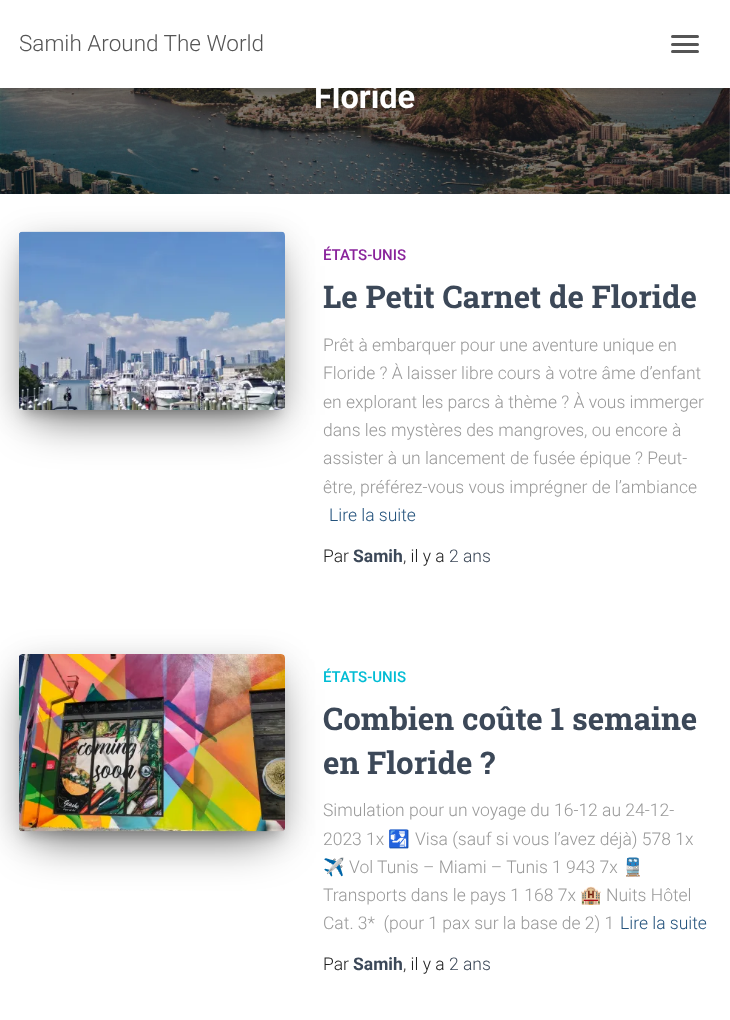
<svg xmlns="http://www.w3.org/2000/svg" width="730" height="1020">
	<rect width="100%" height="100%" fill="#FFFFFF" />
	<image x="0" y="88" width="730" height="106" href="assets/img1.png" />
	<rect x="3" y="8" width="725" height="82" fill="#000000" fill-opacity="0.1" filter="blur(3px)" />
	<rect x="0" y="1" width="730" height="88" fill="#000000" fill-opacity="0.12" filter="blur(6px)" />
	<rect x="8" y="9" width="715" height="72" fill="#000000" fill-opacity="0.42" filter="blur(6px)" />
	<rect x="0" y="0" width="730" height="88" fill="#FFFFFF" />
	<text x="19" y="51" font-family="Roboto" font-size="22.5" font-weight="300" fill="#555555">Samih Around The World</text>
	<rect x="671" y="35" width="28" height="3" rx="1.5" fill="#555555" />
	<rect x="671" y="43" width="28" height="3" rx="1.5" fill="#555555" />
	<rect x="671" y="50" width="28" height="3" rx="1.5" fill="#555555" />
	<text x="314" y="108" font-family="Roboto" font-size="32.5" font-weight="700" fill="#FFFFFF">Floride</text>
	<rect x="-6" y="195" width="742" height="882" fill="#000000" fill-opacity="0.12" filter="blur(19px)" />
	<rect x="0" y="194" width="730" height="826" fill="#FFFFFF" />
	<rect x="25" y="248" width="254" height="166" fill="#000000" fill-opacity="0.2" filter="blur(6px)" />
	<rect x="19" y="236" width="266" height="179" rx="4" fill="#000000" fill-opacity="0.12" filter="blur(15.5px)" />
	<rect x="34" y="266" width="236" height="149" fill="#000000" fill-opacity="0.56" filter="blur(24px)" />
	<image x="19" y="231" width="266" height="179" href="assets/img2.png" />
	<text x="323" y="260" font-family="Roboto" font-size="15" font-weight="500" fill="#89229B">ÉTATS-UNIS</text>
	<text x="323" y="308" font-family="Roboto Slab" font-size="31.25" font-weight="700" fill="#3C4858">Le Petit Carnet de Floride</text>
	<g font-family="Roboto" font-size="17.5" font-weight="300" fill="#999999">
		<text x="323" y="351">Prêt à embarquer pour une aventure unique en</text>
		<text x="323" y="379">Floride ? À laisser libre cours à votre âme d’enfant</text>
		<text x="323" y="408">en explorant les parcs à thème ? À vous immerger</text>
		<text x="323" y="436">dans les mystères des mangroves, ou encore à</text>
		<text x="323" y="464">assister à un lancement de fusée épique ? Peut-</text>
		<text x="323" y="493">être, préférez-vous vous imprégner de l’ambiance</text>
	</g>
	<text x="329" y="521" font-family="Roboto" font-size="17.5" font-weight="300" fill="#23527C">Lire la suite</text>
	<text x="323" y="562" font-family="Roboto" font-size="17.5" font-weight="300" fill="#212121">Par</text>
	<text x="353" y="562" font-family="Roboto" font-size="17.5" font-weight="700" fill="#3C4858">Samih</text>
	<text x="403" y="562" font-family="Roboto" font-size="17.5" font-weight="300" fill="#212121">, il y a</text>
	<text x="449" y="562" font-family="Roboto" font-size="17.5" font-weight="300" fill="#3C4858">2 ans</text>
	<rect x="25" y="670" width="254" height="165" fill="#000000" fill-opacity="0.2" filter="blur(6px)" />
	<rect x="19" y="659" width="266" height="177" rx="4" fill="#000000" fill-opacity="0.12" filter="blur(15.5px)" />
	<rect x="34" y="689" width="236" height="147" fill="#000000" fill-opacity="0.56" filter="blur(24px)" />
	<image x="19" y="654" width="266" height="178" href="assets/img3.png" />
	<text x="323" y="682" font-family="Roboto" font-size="15" font-weight="500" fill="#00BCD4">ÉTATS-UNIS</text>
	<g font-family="Roboto Slab" font-size="31.25" font-weight="700" fill="#3C4858">
		<text x="323" y="730">Combien coûte 1 semaine</text>
		<text x="323" y="774">en Floride ?</text>
	</g>
	<g font-family="Roboto" font-size="17.5" font-weight="300" fill="#999999">
		<text x="323" y="816">Simulation pour un voyage du 16-12 au 24-12-</text>
		<text x="323" y="845">2023 1x</text>
	</g>
	<text x="388" y="845" font-family="Noto Color Emoji" font-size="17.5" fill="#999999">🛂</text>
	<text x="415" y="845" font-family="Roboto" font-size="17.5" font-weight="300" fill="#999999">Visa (sauf si vous l’avez déjà) 578 1x</text>
	<text x="323" y="873" font-family="Noto Color Emoji" font-size="17.5" fill="#999999">✈️</text>
	<text x="349" y="873" font-family="Roboto" font-size="17.5" font-weight="300" fill="#999999">Vol Tunis – Miami – Tunis 1 943 7x</text>
	<text x="622" y="873" font-family="Noto Color Emoji" font-size="17.5" fill="#999999">🚆</text>
	<text x="323" y="901" font-family="Roboto" font-size="17.5" font-weight="300" fill="#999999">Transports dans le pays 1 168 7x</text>
	<text x="580" y="901" font-family="Noto Color Emoji" font-size="17.5" fill="#999999">🏨</text>
	<g font-family="Roboto" font-size="17.5" font-weight="300" fill="#999999">
		<text x="606" y="901">Nuits Hôtel</text>
		<text x="323" y="929" xml:space="preserve">Cat. 3*  (pour 1 pax sur la base de 2) 1</text>
	</g>
	<text x="620" y="929" font-family="Roboto" font-size="17.5" font-weight="300" fill="#23527C">Lire la suite</text>
	<text x="323" y="970" font-family="Roboto" font-size="17.5" font-weight="300" fill="#212121">Par</text>
	<text x="353" y="970" font-family="Roboto" font-size="17.5" font-weight="700" fill="#3C4858">Samih</text>
	<text x="403" y="970" font-family="Roboto" font-size="17.5" font-weight="300" fill="#212121">, il y a</text>
	<text x="449" y="970" font-family="Roboto" font-size="17.5" font-weight="300" fill="#3C4858">2 ans</text>
</svg>
